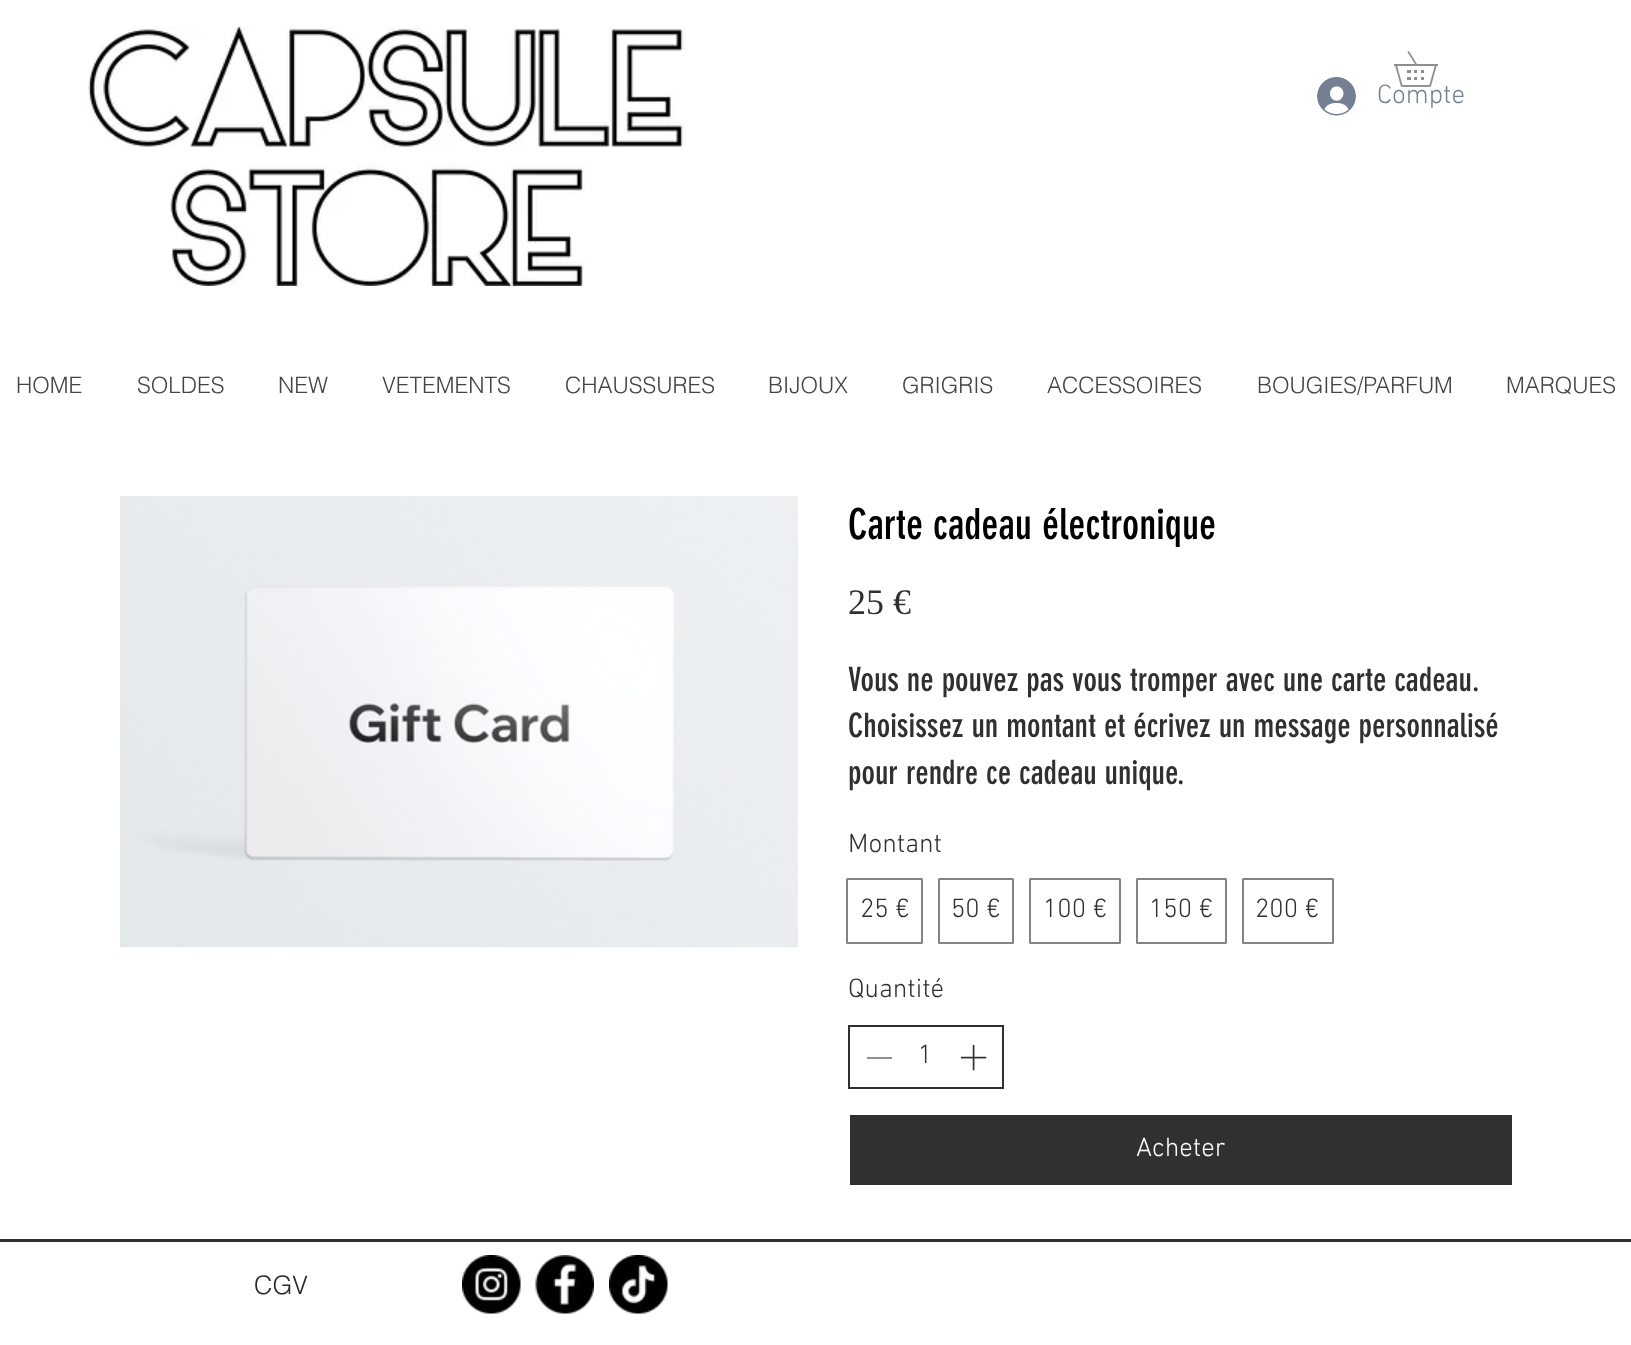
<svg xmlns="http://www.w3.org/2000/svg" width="1631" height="1345">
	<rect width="100%" height="100%" fill="#FFFFFF" />
	<text x="1377" y="103" font-family="'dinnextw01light'" font-size="27" font-weight="300" fill="#748092">Compte</text>
	<image x="1394" y="51" width="44" height="36" href="assets/img1.png" />
	<image x="87" y="26" width="598" height="260" href="assets/img2.png" />
	<image x="1317" y="77" width="39" height="39" href="assets/img3.png" />
	<g font-family="helvetica" font-size="22.5" font-weight="300" fill="#444444">
		<text x="16" y="393">HOME</text>
		<text x="137" y="393">SOLDES</text>
		<text x="278" y="393">NEW</text>
		<text x="382" y="393">VETEMENTS</text>
		<text x="565" y="393">CHAUSSURES</text>
		<text x="768" y="393">BIJOUX</text>
		<text x="902" y="393">GRIGRIS</text>
		<text x="1047" y="393">ACCESSOIRES</text>
		<text x="1257" y="393">BOUGIES/PARFUM</text>
		<text x="1506" y="393">MARQUES</text>
	</g>
	<image x="120" y="496" width="678" height="452" href="assets/img4.png" />
	<text x="848" y="539" font-family="'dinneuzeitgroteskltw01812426'" font-size="42" fill="#000000">Carte cadeau électronique</text>
	<text x="848" y="614" font-family="Liberation Serif" font-size="36" fill="#303030">25 €</text>
	<g font-family="'dinneuzeitgroteskltw01812426'" font-size="33" fill="#303030">
		<text x="848" y="691">Vous ne pouvez pas vous tromper avec une carte cadeau.</text>
		<text x="848" y="737">Choisissez un montant et écrivez un message personnalisé</text>
		<text x="848" y="784">pour rendre ce cadeau unique.</text>
	</g>
	<text x="848" y="852" font-family="'dinnextw01light'" font-size="27" font-weight="300" fill="#303030">Montant</text>
	<rect x="847" y="879" width="75" height="64" rx="0.5" fill="none" stroke="#838383" stroke-width="2" />
	<text x="860" y="917" font-family="'dinnextw01light'" font-size="27" font-weight="300" fill="#303030">25 €</text>
	<rect x="939" y="879" width="74" height="64" rx="0.5" fill="none" stroke="#838383" stroke-width="2" />
	<text x="951" y="917" font-family="'dinnextw01light'" font-size="27" font-weight="300" fill="#303030">50 €</text>
	<rect x="1030" y="879" width="90" height="64" rx="0.5" fill="none" stroke="#838383" stroke-width="2" />
	<text x="1043" y="917" font-family="'dinnextw01light'" font-size="27" font-weight="300" fill="#303030">100 €</text>
	<rect x="1137" y="879" width="89" height="64" rx="0.5" fill="none" stroke="#838383" stroke-width="2" />
	<text x="1149" y="917" font-family="'dinnextw01light'" font-size="27" font-weight="300" fill="#303030">150 €</text>
	<rect x="1243" y="879" width="90" height="64" rx="0.5" fill="none" stroke="#838383" stroke-width="2" />
	<g font-family="'dinnextw01light'" font-size="27" font-weight="300" fill="#303030">
		<text x="1255" y="917">200 €</text>
		<text x="848" y="997">Quantité</text>
	</g>
	<rect x="849" y="1026" width="154" height="62" fill="none" stroke="#303030" stroke-width="2" />
	<rect x="867" y="1057" width="25" height="2" fill="#8F8F8F" />
	<text x="918" y="1063" font-family="'dinnextw01light'" font-size="27" font-weight="300" fill="#303030">1</text>
	<image x="960" y="1044" width="27" height="27" href="assets/img5.png" />
	<rect x="849" y="1114" width="664" height="72" rx="0.5" fill="#303030" stroke="#FFFFFF" stroke-width="2" />
	<text x="1136" y="1156" font-family="'dinnextw01light'" font-size="27" font-weight="300" fill="#FFFFFF">Acheter</text>
	<rect x="0" y="1239" width="1631" height="3" fill="#303030" />
	<text x="254" y="1294" font-family="helvetica" font-size="25.5" font-weight="300" fill="#282626">CGV</text>
	<image x="462" y="1255" width="59" height="59" href="assets/img6.png" />
	<image x="535" y="1255" width="59" height="59" href="assets/img7.png" />
	<image x="609" y="1255" width="59" height="59" href="assets/img8.png" />
</svg>
